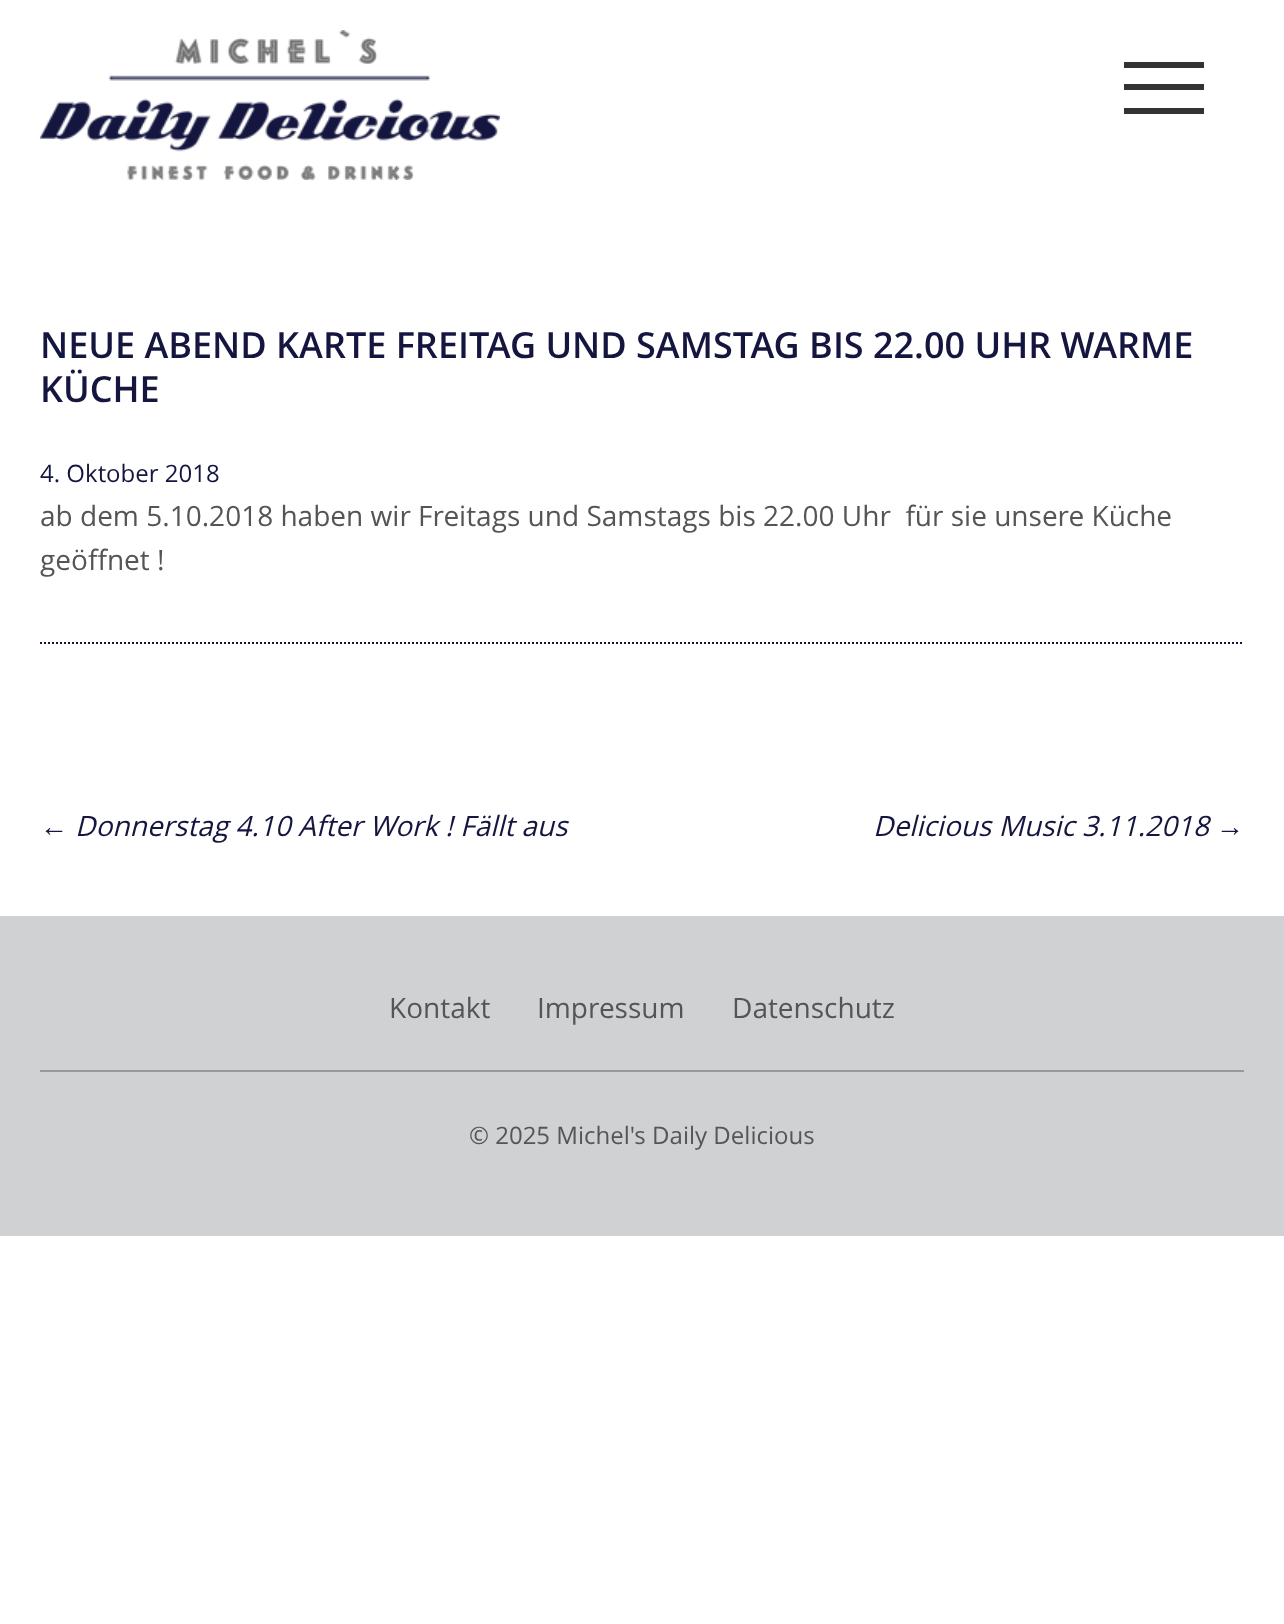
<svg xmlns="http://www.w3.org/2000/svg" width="1284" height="1624">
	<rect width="100%" height="100%" fill="#FFFFFF" />
	<image x="40" y="30" width="460" height="150" href="assets/img1.png" />
	<rect x="1124" y="62" width="80" height="6" fill="#333333" />
	<rect x="1124" y="84" width="80" height="6" fill="#333333" />
	<rect x="1124" y="108" width="80" height="6" fill="#333333" />
	<path d="M40 643H1244" fill="none" stroke="#151640" stroke-width="2" stroke-dasharray="2 2" />
	<g font-family="Open Sans" font-size="36" font-weight="600" fill="#151640">
		<text x="40" y="358">NEUE ABEND KARTE FREITAG UND SAMSTAG BIS 22.00 UHR WARME</text>
		<text x="40" y="402">KÜCHE</text>
	</g>
	<text x="40" y="482" font-family="Open Sans" font-size="24" fill="#151640">4. Oktober 2018</text>
	<g font-family="Open Sans" font-size="28" fill="#555555">
		<text x="40" y="526" xml:space="preserve">ab dem 5.10.2018 haben wir Freitags und Samstags bis 22.00 Uhr  für sie unsere Küche</text>
		<text x="40" y="570">geöffnet !</text>
	</g>
	<text x="40" y="836" font-family="Liberation Sans" font-size="28" font-style="italic" fill="#151640">←</text>
	<g font-family="Open Sans" font-size="28" font-style="italic" fill="#151640">
		<text x="75" y="836">Donnerstag 4.10 After Work ! Fällt aus</text>
		<text x="873" y="836">Delicious Music 3.11.2018</text>
	</g>
	<text x="1216" y="836" font-family="Liberation Sans" font-size="28" font-style="italic" fill="#151640">→</text>
	<rect x="0" y="916" width="1284" height="320" fill="#D0D1D2" />
	<g font-family="Open Sans" font-size="28" fill="#555555">
		<text x="389" y="1018">Kontakt</text>
		<text x="537" y="1018">Impressum</text>
		<text x="732" y="1018">Datenschutz</text>
	</g>
	<rect x="40" y="1070" width="1204" height="2" fill="#999999" />
	<text x="469" y="1144" font-family="Open Sans" font-size="24" fill="#555555">© 2025 Michel's Daily Delicious</text>
</svg>
